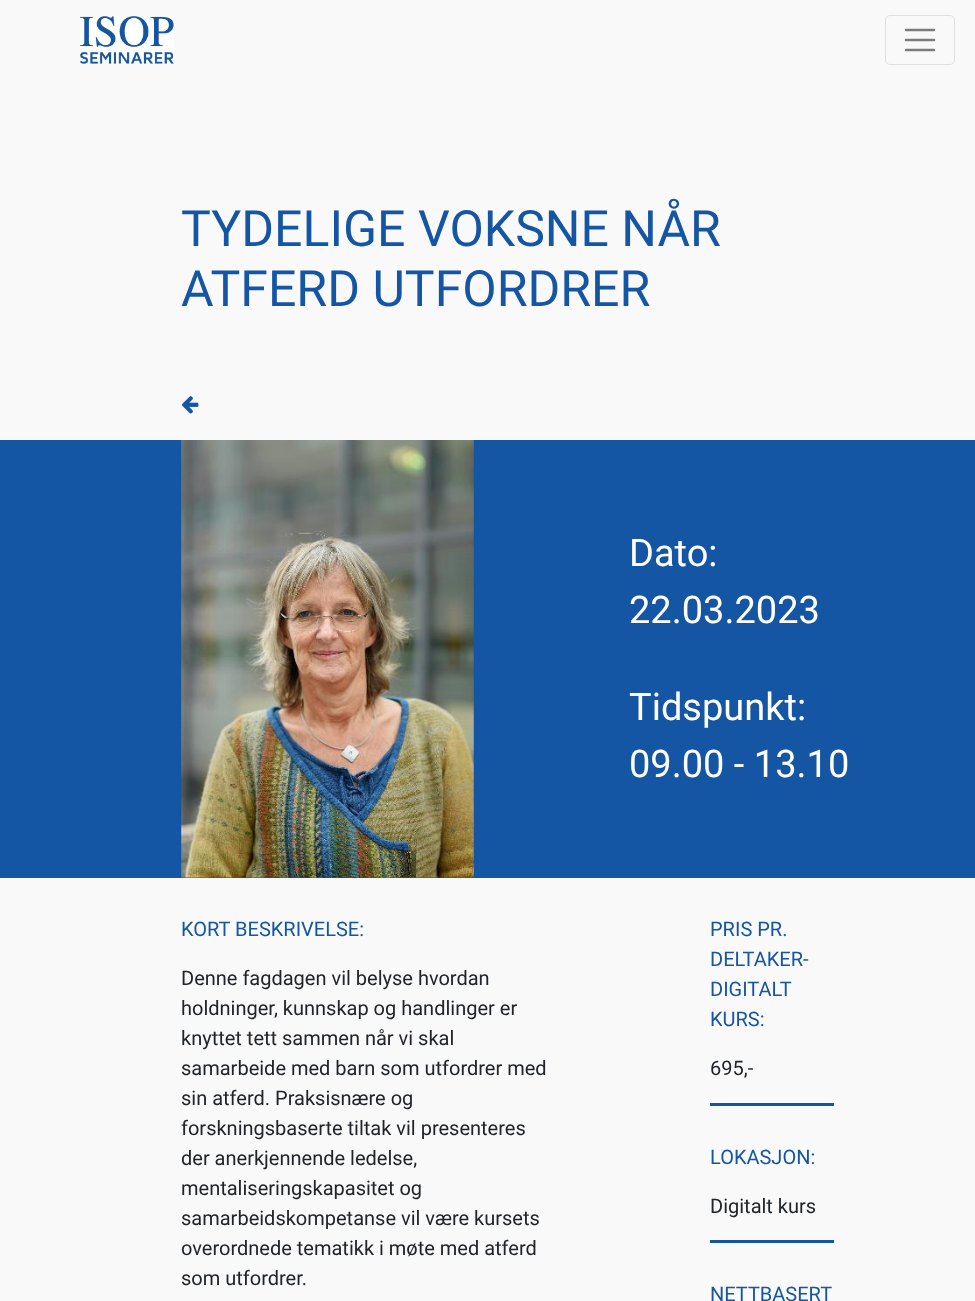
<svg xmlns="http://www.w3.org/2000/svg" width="975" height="1301">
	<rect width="100%" height="100%" fill="#F9F9F9" />
	<image x="80" y="16" width="94" height="48" href="assets/img1.png" />
	<rect x="885.5" y="15.5" width="69" height="49" rx="4.5" fill="none" stroke="#E0E0E0" />
	<path d="M906 30H934M906 40H934M906 50H934" fill="none" stroke="#7D7D7D" stroke-width="2.5" stroke-linecap="round" />
	<g font-family="Roboto" font-size="50" fill="#1556A4">
		<text x="181" y="246">TYDELIGE VOKSNE NÅR</text>
		<text x="181" y="306">ATFERD UTFORDRER</text>
	</g>
	<image x="182" y="396" width="17" height="18" href="assets/img2.png" />
	<rect x="0" y="440" width="975" height="438" fill="#1556A4" />
	<image x="181" y="440" width="293" height="438" href="assets/img3.png" />
	<g font-family="Roboto" font-size="38" fill="#FFFFFF">
		<text x="629" y="566">Dato:</text>
		<text x="629" y="623">22.03.2023</text>
		<text x="629" y="720">Tidspunkt:</text>
		<text x="629" y="777">09.00 - 13.10</text>
	</g>
	<text x="181" y="936" font-family="Roboto" font-size="20" fill="#1556A4">KORT BESKRIVELSE:</text>
	<g font-family="Roboto" font-size="20" fill="#212529">
		<text x="181" y="985">Denne fagdagen vil belyse hvordan</text>
		<text x="181" y="1015">holdninger, kunnskap og handlinger er</text>
		<text x="181" y="1045">knyttet tett sammen når vi skal</text>
		<text x="181" y="1075">samarbeide med barn som utfordrer med</text>
		<text x="181" y="1105">sin atferd. Praksisnære og</text>
		<text x="181" y="1135">forskningsbaserte tiltak vil presenteres</text>
		<text x="181" y="1165">der anerkjennende ledelse,</text>
		<text x="181" y="1195">mentaliseringskapasitet og</text>
		<text x="181" y="1225">samarbeidskompetanse vil være kursets</text>
		<text x="181" y="1255">overordnede tematikk i møte med atferd</text>
		<text x="181" y="1285">som utfordrer.</text>
	</g>
	<rect x="710" y="1103" width="124" height="3" fill="#1556A4" />
	<g font-family="Roboto" font-size="20" fill="#1556A4">
		<text x="710" y="936">PRIS PR.</text>
		<text x="710" y="966">DELTAKER-</text>
		<text x="710" y="996">DIGITALT</text>
		<text x="710" y="1026">KURS:</text>
	</g>
	<text x="710" y="1075" font-family="Roboto" font-size="20" fill="#212529">695,-</text>
	<rect x="710" y="1240" width="124" height="3" fill="#1556A4" />
	<text x="710" y="1164" font-family="Roboto" font-size="20" fill="#1556A4">LOKASJON:</text>
	<text x="710" y="1213" font-family="Roboto" font-size="20" fill="#212529">Digitalt kurs</text>
	<text x="710" y="1301" font-family="Roboto" font-size="20" fill="#1556A4">NETTBASERT</text>
</svg>
